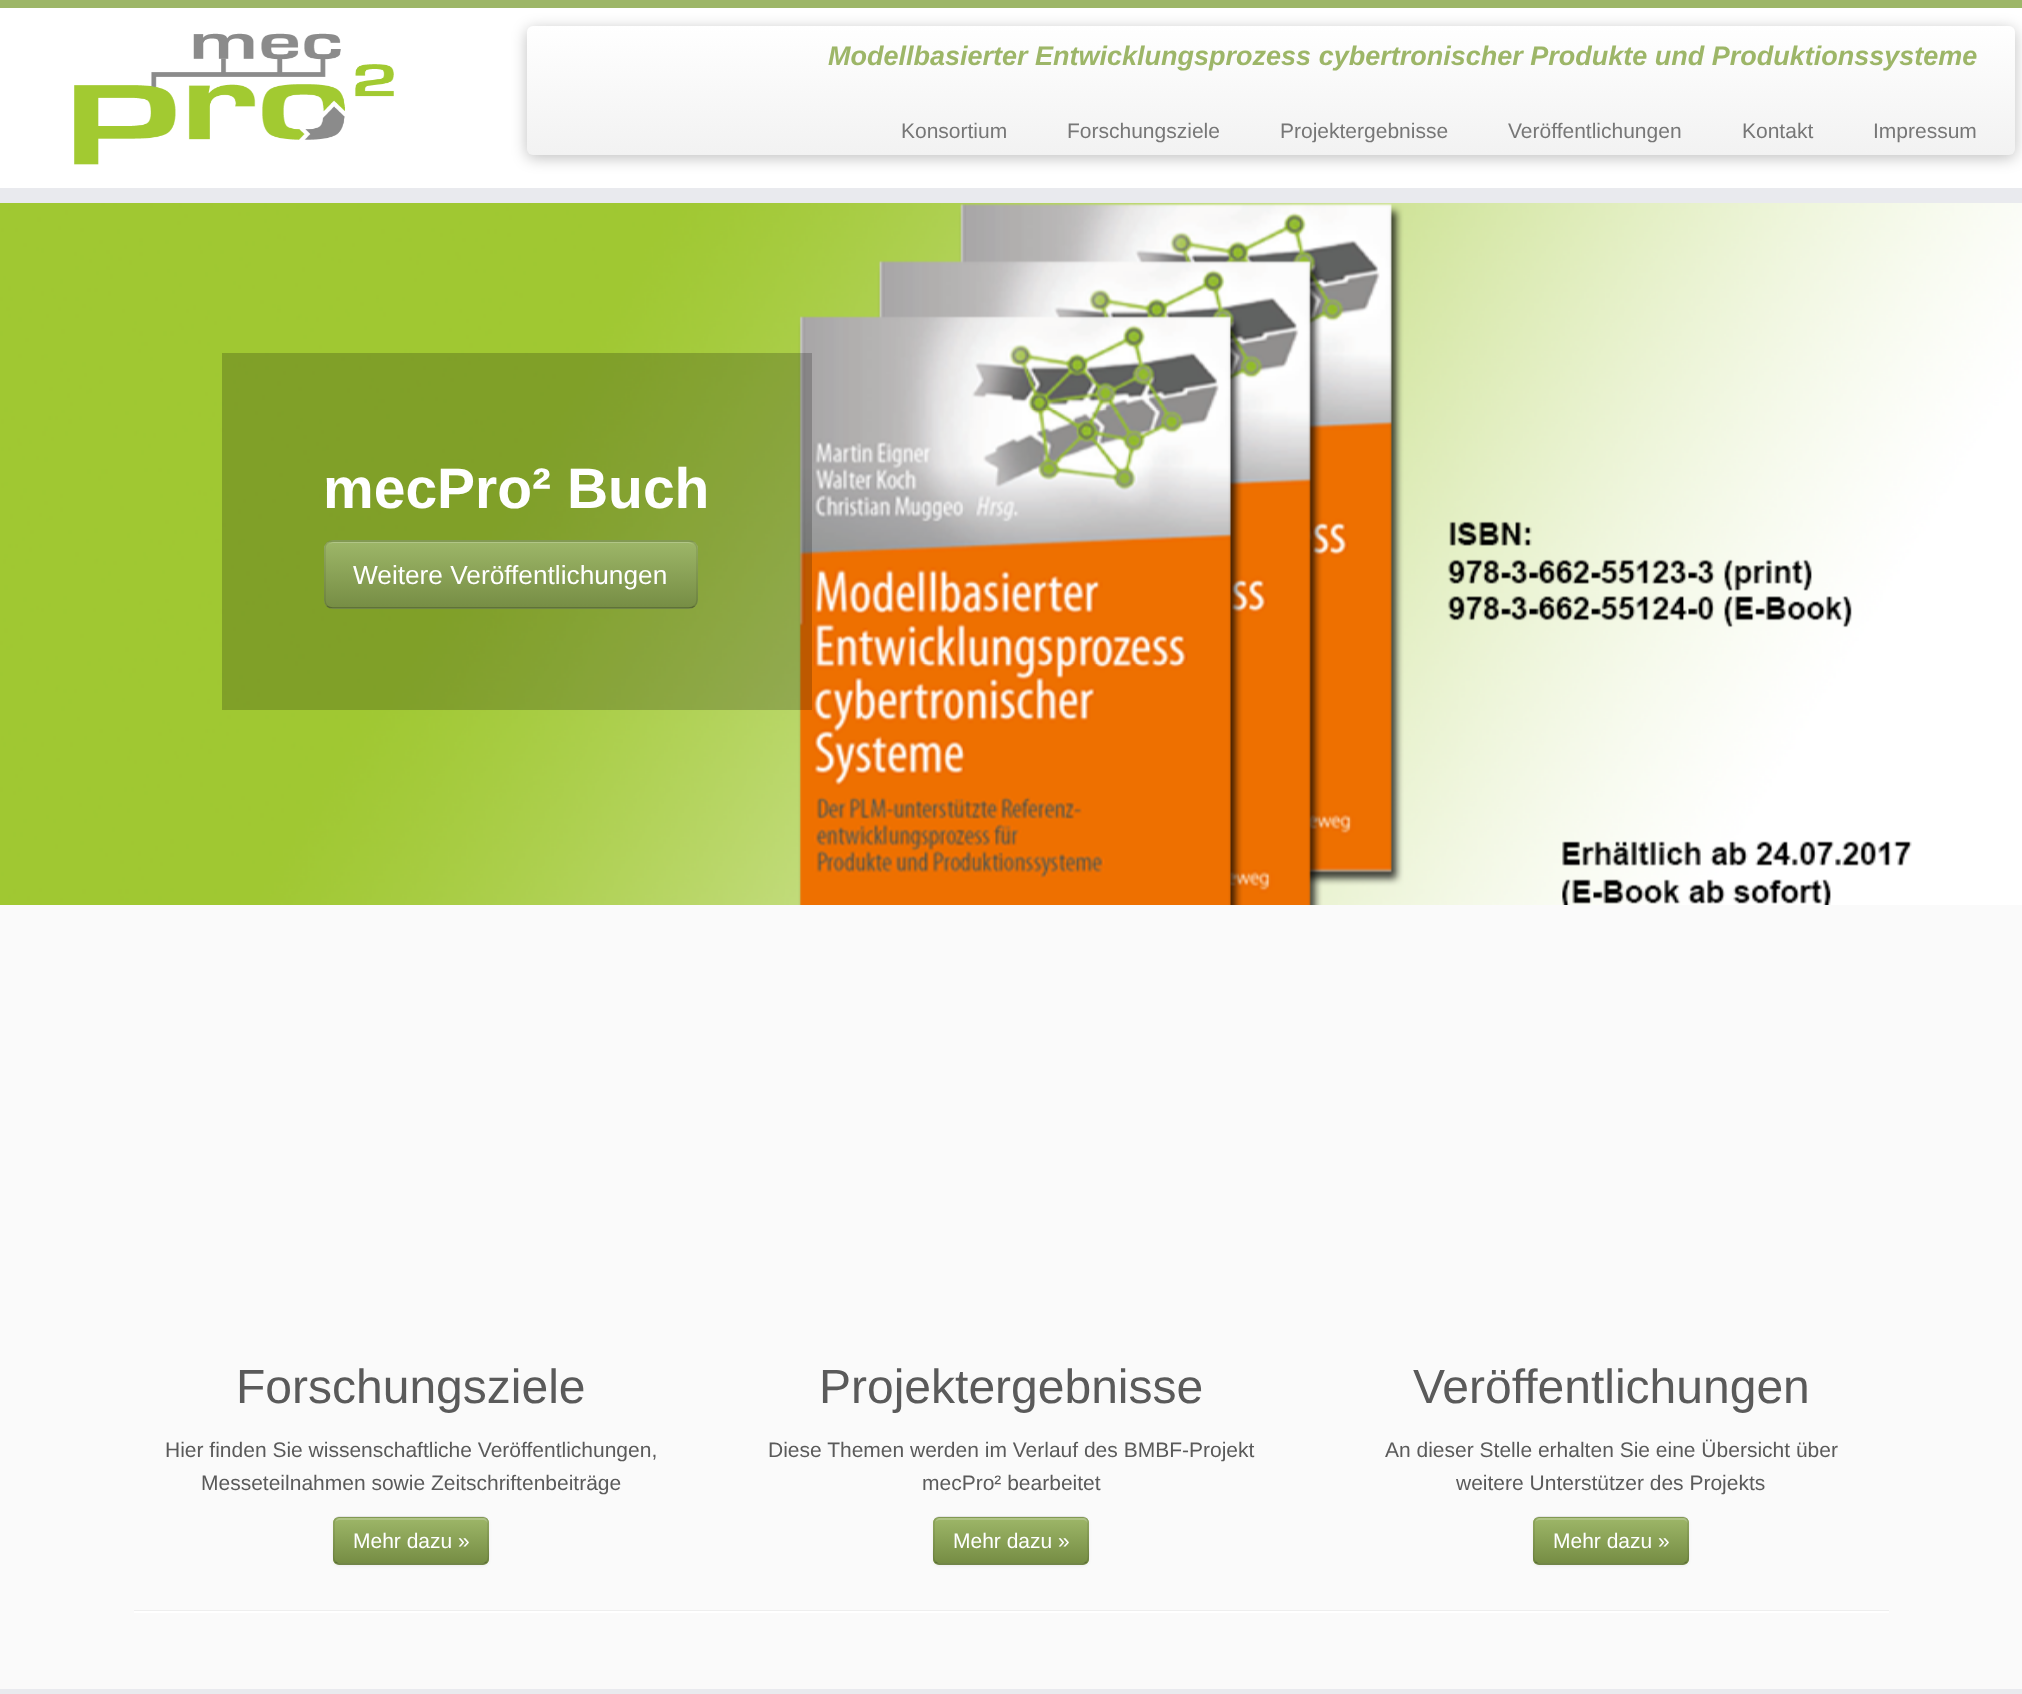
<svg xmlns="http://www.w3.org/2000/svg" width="2022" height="1694">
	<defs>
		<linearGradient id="g1" gradientUnits="userSpaceOnUse" x1="1271" y1="25" x2="1271" y2="155"><stop offset="0" stop-color="#FFFFFF" /><stop offset="1" stop-color="#F2F2F2" /></linearGradient>
		<clipPath id="clip1"><rect x="324" y="540" width="374" height="69" rx="9" /></clipPath>
		<linearGradient id="g2" gradientUnits="userSpaceOnUse" x1="511" y1="542" x2="511" y2="608"><stop offset="0" stop-color="#9DB668" /><stop offset="1" stop-color="#768D44" /></linearGradient>
		<clipPath id="clip2"><rect x="333" y="1517" width="156" height="48" rx="6" /></clipPath>
		<linearGradient id="g3" gradientUnits="userSpaceOnUse" x1="411" y1="1518" x2="411" y2="1563"><stop offset="0" stop-color="#9DB668" /><stop offset="1" stop-color="#768D44" /></linearGradient>
		<clipPath id="clip3"><rect x="933" y="1517" width="156" height="48" rx="6" /></clipPath>
		<linearGradient id="g4" gradientUnits="userSpaceOnUse" x1="1011" y1="1518" x2="1011" y2="1563"><stop offset="0" stop-color="#9DB668" /><stop offset="1" stop-color="#768D44" /></linearGradient>
		<clipPath id="clip4"><rect x="1533" y="1517" width="156" height="48" rx="6" /></clipPath>
		<linearGradient id="g5" gradientUnits="userSpaceOnUse" x1="1611" y1="1518" x2="1611" y2="1563"><stop offset="0" stop-color="#9DB668" /><stop offset="1" stop-color="#768D44" /></linearGradient>
	</defs>
	<rect width="100%" height="100%" fill="#FAFAFA" />
	<rect x="0" y="8" width="2022" height="180" fill="#FFFFFF" />
	<rect x="0" y="0" width="2022" height="8" fill="#9DB668" />
	<rect x="0" y="188" width="2022" height="15" fill="#E9EAEE" />
	<image x="74" y="33" width="320" height="132" href="assets/img1.png" />
	<rect x="527" y="29" width="1488" height="129" rx="6" fill="#000000" fill-opacity="0.25" filter="blur(7.5px)" />
	<rect x="527" y="26" width="1488" height="129" rx="6" fill="url(#g1)" />
	<text x="828" y="65" font-family="Liberation Sans" font-size="27" font-weight="700" font-style="italic" fill="#9DB668">Modellbasierter Entwicklungsprozess cybertronischer Produkte und Produktionssysteme</text>
	<g font-family="Liberation Sans" font-size="21" fill="#777777">
		<text x="901" y="138">Konsortium</text>
		<text x="1067" y="138">Forschungsziele</text>
		<text x="1280" y="138">Projektergebnisse</text>
		<text x="1508" y="138">Veröffentlichungen</text>
		<text x="1742" y="138">Kontakt</text>
		<text x="1873" y="138">Impressum</text>
	</g>
	<image x="0" y="203" width="2022" height="702" href="assets/img2.png" />
	<rect x="222" y="353" width="590" height="357" fill="#000000" fill-opacity="0.2" />
	<text x="323" y="508" font-family="Liberation Sans" font-size="57" font-weight="700" fill="#FFFFFF">mecPro² Buch</text>
	<rect x="324" y="540" width="374" height="69" rx="9" fill="#8DA65A" />
	<g clip-path="url(#clip1)">
		<rect x="324" y="542" width="374" height="66" fill="url(#g2)" />
	</g>
	<path d="M333 543H688C693 543 696 546 696 550C696 546 692 542 688 542H334C330 542 326 546 326 550C326 546 329 543 333 543Z" fill="#B1C586" />
	<path d="M694.5 606C693 607.5 690.5 608 688.5 608H333C331 608 328.5 607.5 327 606" fill="none" stroke="#000000" stroke-opacity="0.25" stroke-width="1.5" />
	<path d="M327 606C325.5 604.5 325 602 325 600V549C325 547 325.5 544.5 327 543C328.5 541.5 331 541 333 541H688.5C690.5 541 693 541.5 694.5 543C696 544.5 697 547 697 549V600C697 602 696 604.5 694.5 606" fill="none" stroke="#000000" stroke-opacity="0.1" stroke-width="1.5" />
	<text x="353" y="584" font-family="Liberation Sans" font-size="26.25" fill="#FFFFFF">Weitere Veröffentlichungen</text>
	<text x="236" y="1403" font-family="Liberation Sans" font-size="48" fill="#5A5A5A">Forschungsziele</text>
	<g font-family="Liberation Sans" font-size="21" fill="#5A5A5A">
		<text x="165" y="1457">Hier finden Sie wissenschaftliche Veröffentlichungen,</text>
		<text x="201" y="1490">Messeteilnahmen sowie Zeitschriftenbeiträge</text>
	</g>
	<rect x="333" y="1518" width="156" height="48" rx="6" fill="#000000" fill-opacity="0.05" filter="blur(1.5px)" />
	<rect x="333" y="1517" width="156" height="48" rx="6" fill="#8DA65A" />
	<g clip-path="url(#clip2)">
		<rect x="333" y="1518" width="156" height="45" fill="url(#g3)" />
	</g>
	<path d="M339 1520H483C485 1520 488 1522 488 1524V1523C488 1520 486 1518 483 1518H340C338 1518 336 1520 335 1522C336 1521 338 1520 339 1520Z" fill="#FFFFFF" fill-opacity="0.2" />
	<path d="M486.5 1562C485.5 1563 484.5 1564 483 1564H339C337.5 1564 336.5 1563 335.5 1562" fill="none" stroke="#000000" stroke-opacity="0.25" stroke-width="1.5" />
	<path d="M335.5 1562C332 1559 334 1550 334 1546.5V1528.5C334 1524.5 333 1517.5 339 1517H483C489 1517.5 488 1524.5 488 1528.5V1546.5C488 1550 490 1559 486.5 1562" fill="none" stroke="#000000" stroke-opacity="0.1" stroke-width="1.5" />
	<text x="353" y="1548" font-family="Liberation Sans" font-size="21" fill="#FFFFFF">Mehr dazu »</text>
	<text x="819" y="1403" font-family="Liberation Sans" font-size="48" fill="#5A5A5A">Projektergebnisse</text>
	<g font-family="Liberation Sans" font-size="21" fill="#5A5A5A">
		<text x="768" y="1457">Diese Themen werden im Verlauf des BMBF-Projekt</text>
		<text x="922" y="1490">mecPro² bearbeitet</text>
	</g>
	<rect x="933" y="1518" width="156" height="48" rx="6" fill="#000000" fill-opacity="0.05" filter="blur(1.5px)" />
	<rect x="933" y="1517" width="156" height="48" rx="6" fill="#8DA65A" />
	<g clip-path="url(#clip3)">
		<rect x="933" y="1518" width="156" height="45" fill="url(#g4)" />
	</g>
	<path d="M939 1520H1083C1085 1520 1088 1522 1088 1524V1523C1088 1520 1086 1518 1083 1518H940C938 1518 936 1520 935 1522C936 1521 938 1520 939 1520Z" fill="#FFFFFF" fill-opacity="0.2" />
	<path d="M1086.5 1562C1085.5 1563 1084.5 1564 1083 1564H939C937.5 1564 936.5 1563 935.5 1562" fill="none" stroke="#000000" stroke-opacity="0.25" stroke-width="1.5" />
	<path d="M935.5 1562C932 1559 934 1550 934 1546.5V1528.5C934 1524.5 933 1517.5 939 1517H1083C1089 1517.5 1088 1524.5 1088 1528.5V1546.5C1088 1550 1090 1559 1086.5 1562" fill="none" stroke="#000000" stroke-opacity="0.1" stroke-width="1.5" />
	<text x="953" y="1548" font-family="Liberation Sans" font-size="21" fill="#FFFFFF">Mehr dazu »</text>
	<text x="1413" y="1403" font-family="Liberation Sans" font-size="48" fill="#5A5A5A">Veröffentlichungen</text>
	<g font-family="Liberation Sans" font-size="21" fill="#5A5A5A">
		<text x="1385" y="1457">An dieser Stelle erhalten Sie eine Übersicht über</text>
		<text x="1456" y="1490">weitere Unterstützer des Projekts</text>
	</g>
	<rect x="1533" y="1518" width="156" height="48" rx="6" fill="#000000" fill-opacity="0.05" filter="blur(1.5px)" />
	<rect x="1533" y="1517" width="156" height="48" rx="6" fill="#8DA65A" />
	<g clip-path="url(#clip4)">
		<rect x="1533" y="1518" width="156" height="45" fill="url(#g5)" />
	</g>
	<path d="M1539 1520H1683C1685 1520 1688 1522 1688 1524V1523C1688 1520 1686 1518 1683 1518H1540C1538 1518 1536 1520 1535 1522C1536 1521 1538 1520 1539 1520Z" fill="#FFFFFF" fill-opacity="0.2" />
	<path d="M1686.5 1562C1685.5 1563 1684.5 1564 1683 1564H1539C1537.5 1564 1536.5 1563 1535.5 1562" fill="none" stroke="#000000" stroke-opacity="0.25" stroke-width="1.5" />
	<path d="M1535.5 1562C1532 1559 1534 1550 1534 1546.5V1528.5C1534 1524.5 1533 1517.5 1539 1517H1683C1689 1517.5 1688 1524.5 1688 1528.5V1546.5C1688 1550 1690 1559 1686.5 1562" fill="none" stroke="#000000" stroke-opacity="0.1" stroke-width="1.5" />
	<text x="1553" y="1548" font-family="Liberation Sans" font-size="21" fill="#FFFFFF">Mehr dazu »</text>
	<rect x="134" y="1610" width="1755" height="1" fill="#EEEEEE" />
	<rect x="134" y="1611" width="1755" height="2" fill="#FFFFFF" />
	<rect x="0" y="1689" width="2022" height="5" fill="#E9EAEE" />
</svg>
